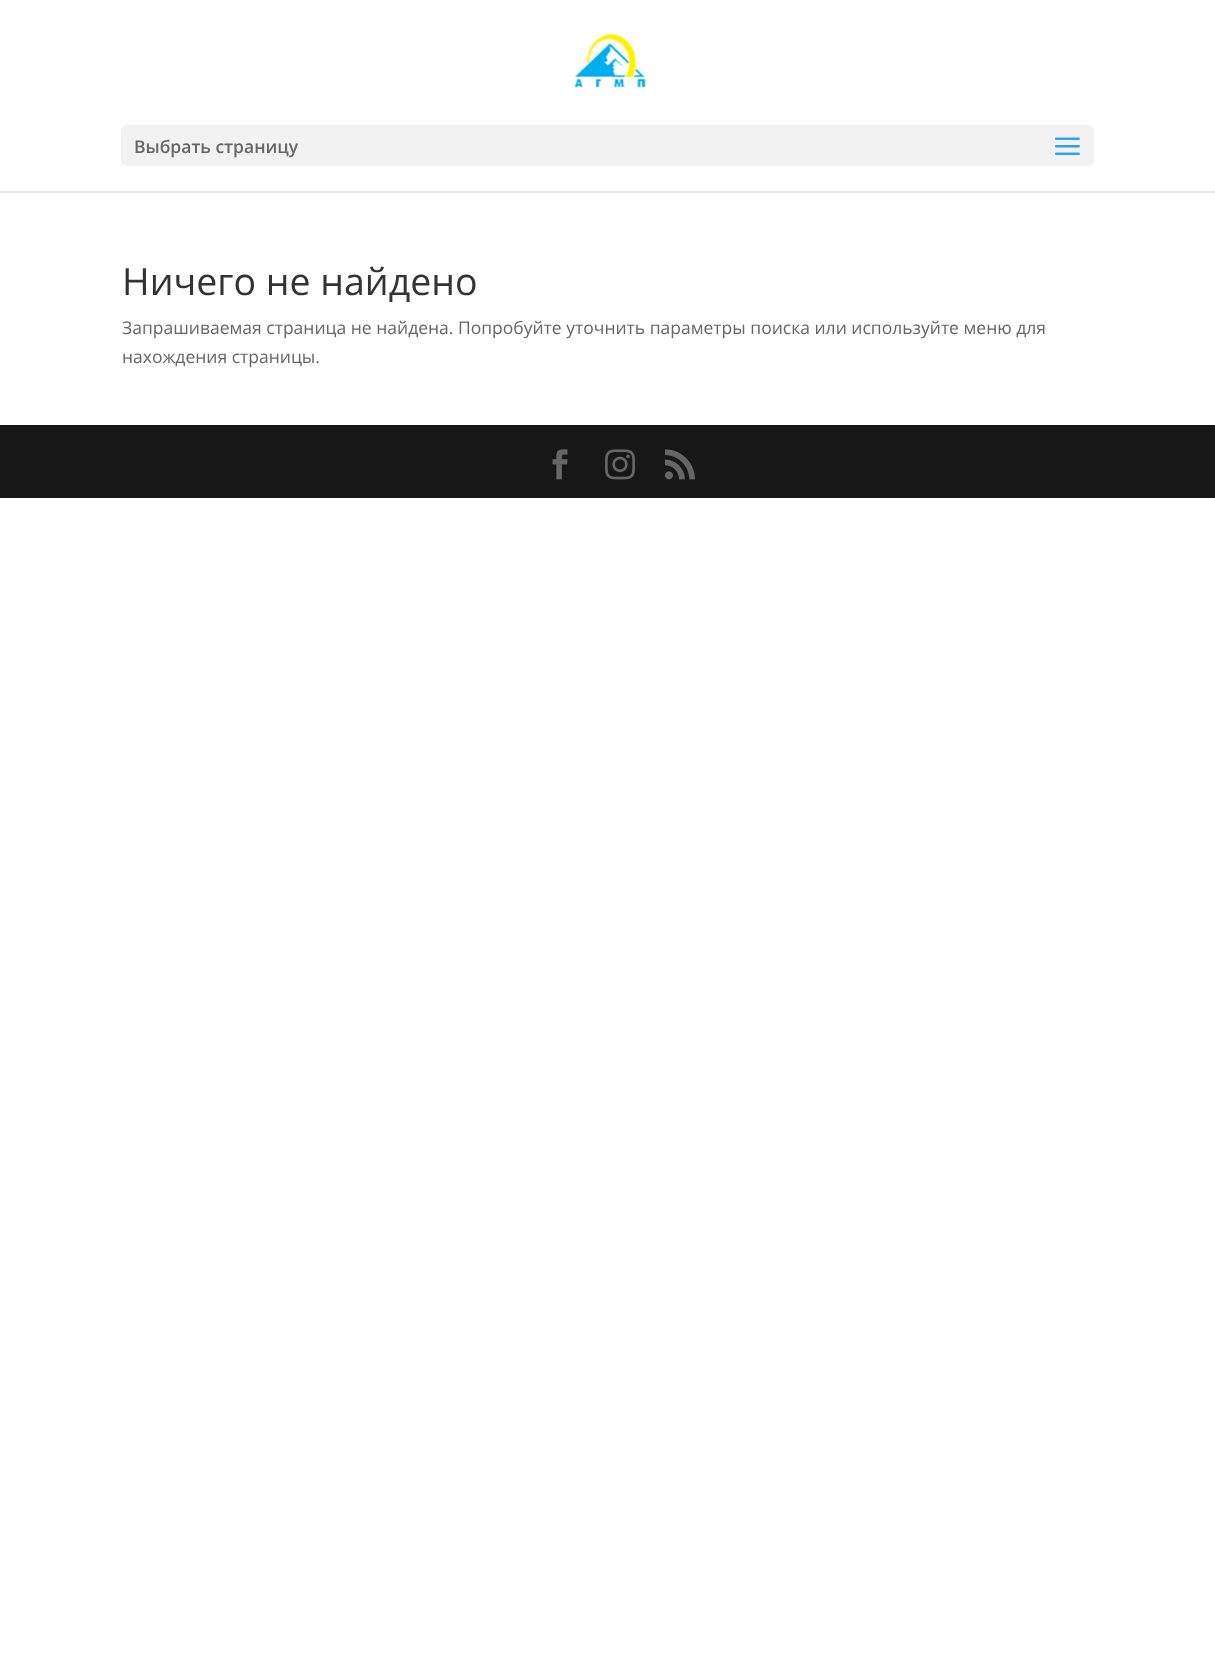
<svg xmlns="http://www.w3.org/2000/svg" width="1215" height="1672">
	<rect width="100%" height="100%" fill="#FFFFFF" />
	<rect x="0" y="191" width="1215" height="2" fill="#E6E6E6" />
	<image x="574" y="34" width="72" height="54" href="assets/img1.png" />
	<rect x="121" y="125" width="973" height="41" rx="6" fill="#F2F2F2" />
	<text x="134" y="153" font-family="Open Sans" font-size="17.5" font-weight="600" fill="#666666">Выбрать страницу</text>
	<image x="1055" y="137" width="25" height="18" href="assets/img2.png" />
	<text x="122" y="295" font-family="Open Sans" font-size="37.5" fill="#333333">Ничего не найдено</text>
	<g font-family="Open Sans" font-size="17.5" fill="#666666">
		<text x="122" y="334">Запрашиваемая страница не найдена. Попробуйте уточнить параметры поиска или используйте меню для</text>
		<text x="122" y="363">нахождения страницы.</text>
	</g>
	<rect x="0" y="425" width="1215" height="73" fill="#171717" />
	<image x="552" y="449" width="16" height="31" href="assets/img3.png" />
	<image x="605" y="449" width="30" height="31" href="assets/img4.png" />
	<image x="665" y="449" width="30" height="31" href="assets/img5.png" />
</svg>
